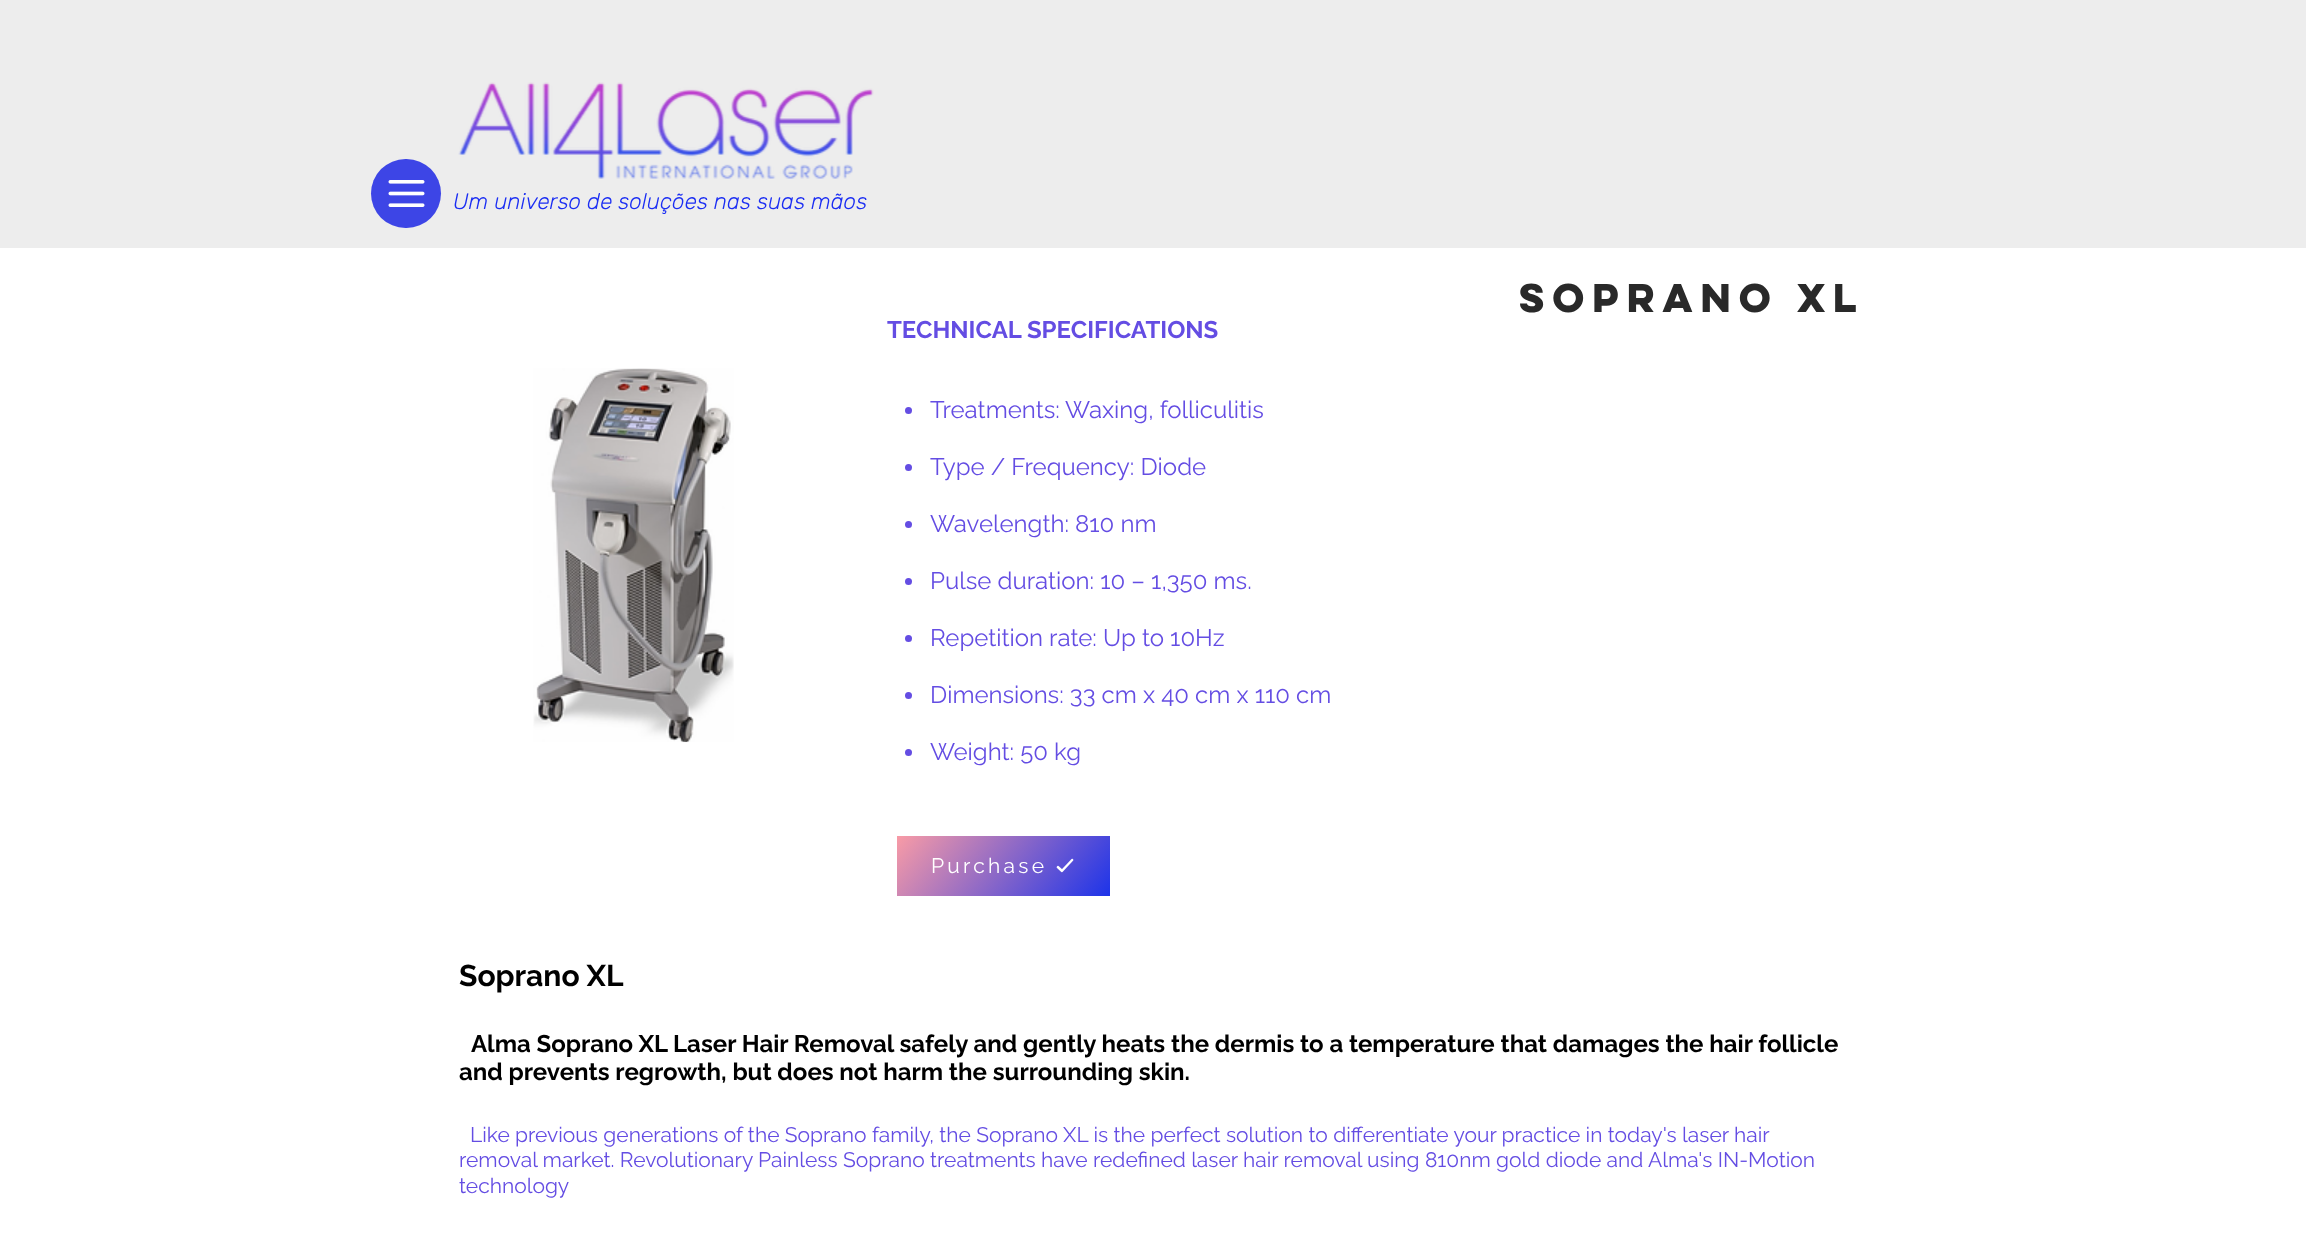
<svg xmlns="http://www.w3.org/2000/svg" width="2306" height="1236">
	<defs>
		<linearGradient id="g1" gradientUnits="userSpaceOnUse" x1="1082" y1="929" x2="925" y2="802"><stop offset="0" stop-color="#1E34E9" /><stop offset="1" stop-color="#F89BA6" /></linearGradient>
	</defs>
	<rect width="100%" height="100%" fill="#FFFFFF" />
	<rect x="0" y="0" width="2306" height="248" fill="#EDEDED" />
	<image x="458" y="82" width="416" height="97" href="assets/img1.png" />
	<rect x="371" y="159" width="70" height="69" rx="34.5" fill="#3D45E6" />
	<image x="388" y="180" width="37" height="27" href="assets/img2.png" />
	<text x="453" y="209" font-family="Rubik" font-size="22.5" font-weight="300" font-style="italic" fill="#1A2DF3">Um universo de soluções nas suas mãos</text>
	<text x="1519" y="312" font-family="'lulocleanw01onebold'" font-size="36" font-weight="700" fill="#292929">Soprano xl</text>
	<image x="533" y="368" width="201" height="375" href="assets/img3.png" />
	<text x="887" y="338" font-family="Raleway" font-size="24" font-weight="700" fill="#644DE3">TECHNICAL SPECIFICATIONS</text>
	<circle cx="908.5" cy="410.5" r="3.5" fill="#644DE3" />
	<text x="930" y="418" font-family="Raleway" font-size="24" fill="#644DE3">Treatments: Waxing, folliculitis</text>
	<circle cx="908.5" cy="467.5" r="3.5" fill="#644DE3" />
	<text x="930" y="475" font-family="Raleway" font-size="24" fill="#644DE3">Type / Frequency: Diode</text>
	<circle cx="908.5" cy="524.5" r="3.5" fill="#644DE3" />
	<text x="930" y="532" font-family="Raleway" font-size="24" fill="#644DE3">Wavelength: 810 nm</text>
	<circle cx="908.5" cy="581.5" r="3.5" fill="#644DE3" />
	<text x="930" y="589" font-family="Raleway" font-size="24" fill="#644DE3">Pulse duration: 10 – 1,350 ms.</text>
	<circle cx="908.5" cy="638.5" r="3.5" fill="#644DE3" />
	<text x="930" y="646" font-family="Raleway" font-size="24" fill="#644DE3">Repetition rate: Up to 10Hz</text>
	<circle cx="908.5" cy="695.5" r="3.5" fill="#644DE3" />
	<text x="930" y="703" font-family="Raleway" font-size="24" fill="#644DE3">Dimensions: 33 cm x 40 cm x 110 cm</text>
	<circle cx="908.5" cy="752.5" r="3.5" fill="#644DE3" />
	<text x="930" y="760" font-family="Raleway" font-size="24" fill="#644DE3">Weight: 50 kg</text>
	<rect x="897" y="836" width="213" height="60" fill="url(#g1)" />
	<text x="931" y="873" font-family="Raleway" font-size="21" letter-spacing="3.25" fill="#FFFFFF">Purchase</text>
	<image x="1056" y="858" width="18" height="15" href="assets/img4.png" />
	<text x="459" y="986" font-family="Raleway" font-size="30" font-weight="700" fill="#000000">Soprano XL</text>
	<g font-family="Raleway" font-size="24" font-weight="700" fill="#000000">
		<text x="471" y="1052">Alma Soprano XL Laser Hair Removal safely and gently heats the dermis to a temperature that damages the hair follicle</text>
		<text x="459" y="1080">and prevents regrowth, but does not harm the surrounding skin.</text>
	</g>
	<g font-family="Raleway" font-size="21" fill="#644DE3">
		<text x="470" y="1142">Like previous generations of the Soprano family, the Soprano XL is the perfect solution to differentiate your practice in today's laser hair</text>
		<text x="459" y="1167">removal market. Revolutionary Painless Soprano treatments have redefined laser hair removal using 810nm gold diode and Alma's IN-Motion</text>
		<text x="459" y="1193">technology</text>
	</g>
</svg>
